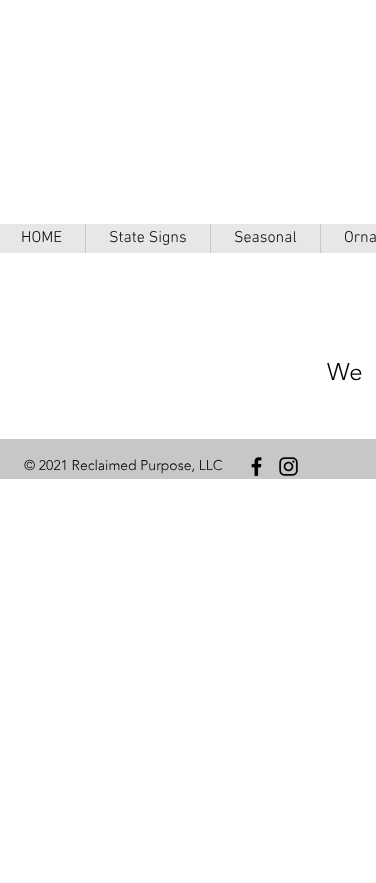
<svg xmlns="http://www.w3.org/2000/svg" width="376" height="883">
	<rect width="100%" height="100%" fill="#FFFFFF" />
	<rect x="0" y="224" width="376" height="29" fill="#E8E6E6" />
	<text x="21" y="242" font-family="'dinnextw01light'" font-size="16" font-weight="300" fill="#000000">HOME</text>
	<rect x="85" y="224" width="1" height="29" fill="#C7C7C7" />
	<text x="109" y="242" font-family="'dinnextw01light'" font-size="16" font-weight="300" fill="#000000">State Signs</text>
	<rect x="210" y="224" width="1" height="29" fill="#C7C7C7" />
	<text x="234" y="242" font-family="'dinnextw01light'" font-size="16" font-weight="300" fill="#000000">Seasonal</text>
	<rect x="320" y="224" width="1" height="29" fill="#C7C7C7" />
	<text x="344" y="242" font-family="'dinnextw01light'" font-size="16" font-weight="300" fill="#000000">Orna</text>
	<text x="327" y="380" font-family="'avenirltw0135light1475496'" font-size="24" font-weight="300" fill="#000000">We</text>
	<rect x="0" y="439" width="376" height="40" fill="#C7C7C7" />
	<text x="24" y="470" font-family="'avenirltw0135light1475496'" font-size="14" font-weight="300" fill="#000000">© 2021 Reclaimed Purpose, LLC</text>
	<image x="251" y="457" width="11" height="20" href="assets/img1.png" />
	<image x="279" y="457" width="19" height="19" href="assets/img2.png" />
</svg>
